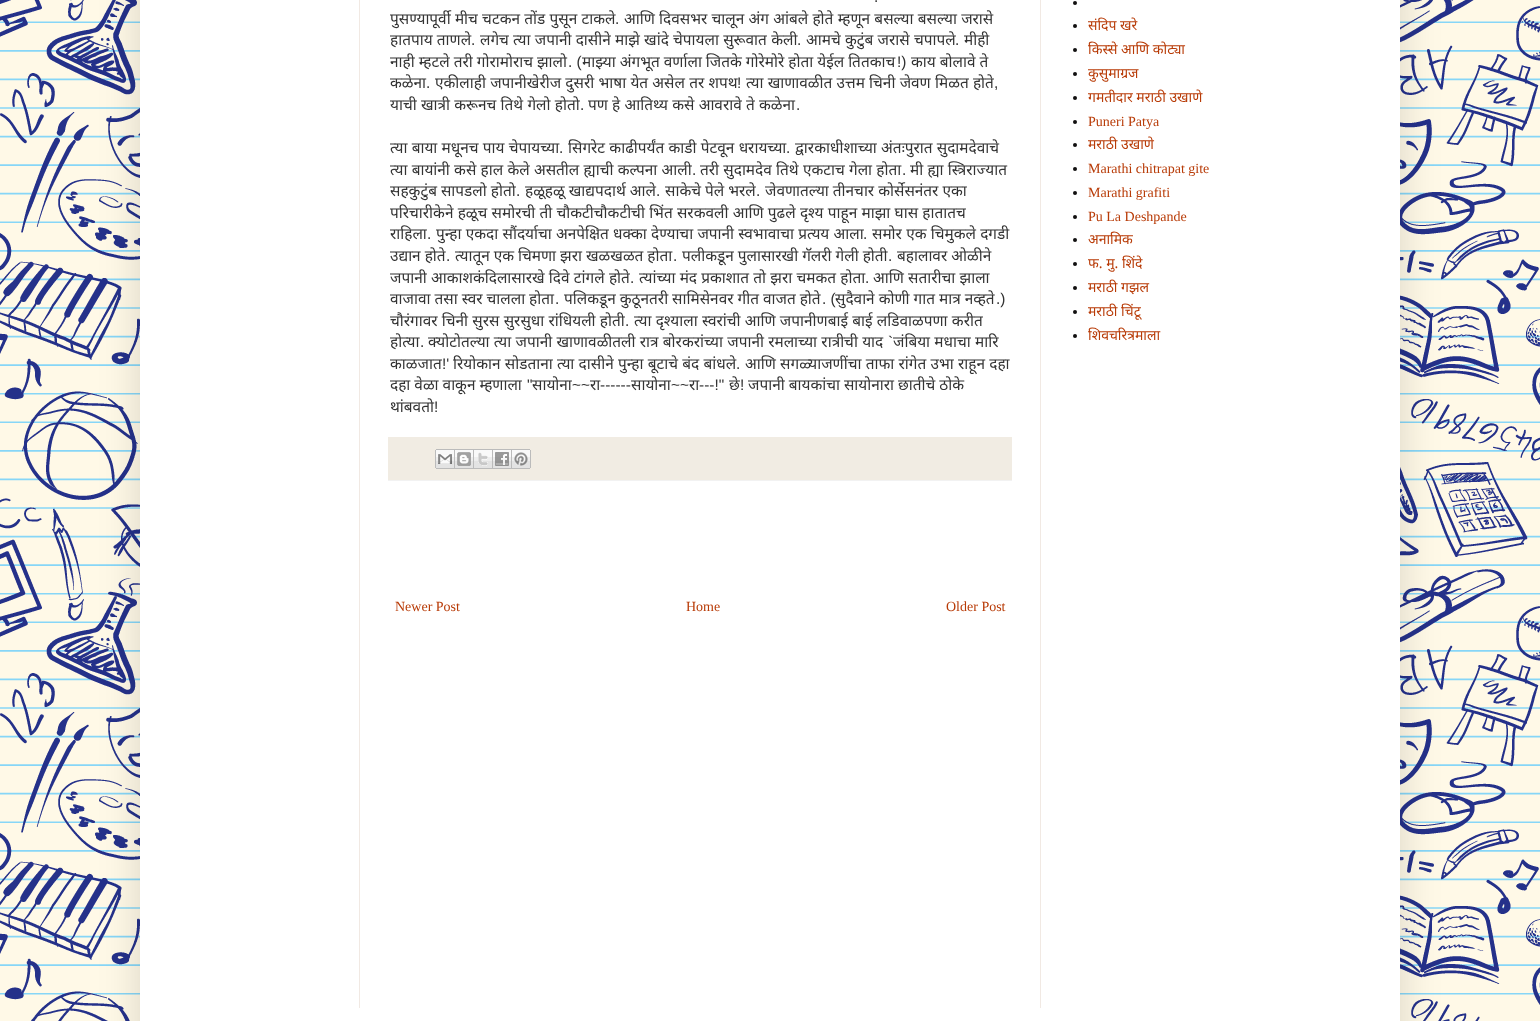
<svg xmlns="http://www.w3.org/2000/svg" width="1540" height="1021">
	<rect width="100%" height="100%" fill="#FFFFFF" />
	<image x="0" y="0" width="1540" height="1021" href="assets/img1.png" />
	<rect x="140" y="-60" width="1260" height="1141" fill="#000000" fill-opacity="0.15" filter="blur(20px)" />
	<rect x="140" y="0" width="1260" height="1021" fill="#FFFFFF" />
	<rect x="359" y="0" width="1" height="1008" fill="#F1E9E3" />
	<text x="874" y="2" font-family="Liberation Sans" font-size="15.4" fill="#333333">.</text>
	<text x="390" y="24" word-spacing="0.25" font-family="Noto Sans" font-size="15.4" fill="#333333">पुसण्यापूर्वी मीच चटकन तोंड पुसून टाकले</text>
	<text x="615" y="24" font-family="Liberation Sans" font-size="15.4" fill="#333333">.</text>
	<g font-family="Noto Sans" font-size="15.4" fill="#333333">
		<text x="624" y="24" word-spacing="0.25">आणि दिवसभर चालून अंग आंबले होते म्हणून बसल्या बसल्या जरासे</text>
		<text x="390" y="45" word-spacing="0.25">हातपाय ताणले</text>
	</g>
	<text x="471" y="45" font-family="Liberation Sans" font-size="15.4" fill="#333333">.</text>
	<text x="480" y="45" word-spacing="0.25" font-family="Noto Sans" font-size="15.4" fill="#333333">लगेच त्या जपानी दासीने माझे खांदे चेपायला सुरूवात केली</text>
	<text x="797" y="45" font-family="Liberation Sans" font-size="15.4" fill="#333333">.</text>
	<text x="806" y="45" word-spacing="0.25" font-family="Noto Sans" font-size="15.4" fill="#333333">आमचे कुटुंब जरासे चपापले</text>
	<text x="955" y="45" font-family="Liberation Sans" font-size="15.4" fill="#333333">.</text>
	<g font-family="Noto Sans" font-size="15.4" fill="#333333">
		<text x="964" y="45">मीही</text>
		<text x="390" y="67">नाही म्हटले तरी गोरामोराच झालो</text>
	</g>
	<text x="568" y="67" font-family="Liberation Sans" font-size="15.4" fill="#333333">. (</text>
	<text x="582" y="67" font-family="Noto Sans" font-size="15.4" fill="#333333">माझ्या अंगभूत वर्णाला जितके गोरेमोरे होता येईल तितकाच</text>
	<text x="897" y="67" font-family="Liberation Sans" font-size="15.4" fill="#333333">!)</text>
	<g font-family="Noto Sans" font-size="15.4" fill="#333333">
		<text x="911" y="67">काय बोलावे ते</text>
		<text x="390" y="88">कळेना</text>
	</g>
	<text x="426" y="88" font-family="Liberation Sans" font-size="15.4" fill="#333333">.</text>
	<text x="435" y="88" word-spacing="0.25" font-family="Noto Sans" font-size="15.4" fill="#333333">एकीलाही जपानीखेरीज दुसरी भाषा येत असेल तर शपथ</text>
	<text x="737" y="88" font-family="Liberation Sans" font-size="15.4" fill="#333333">!</text>
	<text x="746" y="88" word-spacing="0.25" font-family="Noto Sans" font-size="15.4" fill="#333333">त्या खाणावळीत उत्तम चिनी जेवण मिळत होते</text>
	<text x="994" y="88" font-family="Liberation Sans" font-size="15.4" fill="#333333">,</text>
	<text x="390" y="110" word-spacing="0.25" font-family="Noto Sans" font-size="15.4" fill="#333333">याची खात्री करूनच तिथे गेलो होतो</text>
	<text x="580" y="110" font-family="Liberation Sans" font-size="15.4" fill="#333333">.</text>
	<text x="588" y="110" word-spacing="0.25" font-family="Noto Sans" font-size="15.4" fill="#333333">पण हे आतिथ्य कसे आवरावे ते कळेना</text>
	<text x="796" y="110" font-family="Liberation Sans" font-size="15.4" fill="#333333">.</text>
	<text x="390" y="153" word-spacing="0.25" font-family="Noto Sans" font-size="15.4" fill="#333333">त्या बाया मधूनच पाय चेपायच्या</text>
	<text x="559" y="153" font-family="Liberation Sans" font-size="15.4" fill="#333333">.</text>
	<text x="568" y="153" word-spacing="0.25" font-family="Noto Sans" font-size="15.4" fill="#333333">सिगरेट काढीपर्यंत काडी पेटवून धरायच्या</text>
	<text x="786" y="153" font-family="Liberation Sans" font-size="15.4" fill="#333333">.</text>
	<g font-family="Noto Sans" font-size="15.4" fill="#333333">
		<text x="795" y="153" word-spacing="0.25">द्वारकाधीशाच्या अंतःपुरात सुदामदेवाचे</text>
		<text x="390" y="175" word-spacing="0.25">त्या बायांनी कसे हाल केले असतील ह्याची कल्पना आली</text>
	</g>
	<text x="692" y="175" font-family="Liberation Sans" font-size="15.4" fill="#333333">.</text>
	<text x="700" y="175" word-spacing="0.25" font-family="Noto Sans" font-size="15.4" fill="#333333">तरी सुदामदेव तिथे एकटाच गेला होता</text>
	<text x="902" y="175" font-family="Liberation Sans" font-size="15.4" fill="#333333">.</text>
	<g font-family="Noto Sans" font-size="15.4" fill="#333333">
		<text x="910" y="175" word-spacing="0.25">मी ह्या स्त्रिराज्यात</text>
		<text x="390" y="196">सहकुटुंब सापडलो होतो</text>
	</g>
	<text x="516" y="196" font-family="Liberation Sans" font-size="15.4" fill="#333333">.</text>
	<text x="525" y="196" font-family="Noto Sans" font-size="15.4" fill="#333333">हळूहळू खाद्यपदार्थ आले</text>
	<text x="656" y="196" font-family="Liberation Sans" font-size="15.4" fill="#333333">.</text>
	<text x="665" y="196" font-family="Noto Sans" font-size="15.4" fill="#333333">साकेचे पेले भरले</text>
	<text x="756" y="196" font-family="Liberation Sans" font-size="15.4" fill="#333333">.</text>
	<g font-family="Noto Sans" font-size="15.4" fill="#333333">
		<text x="765" y="196">जेवणातल्या तीनचार कोर्सेसनंतर एका</text>
		<text x="390" y="218" word-spacing="0.25">परिचारीकेने हळूच समोरची ती चौकटीचौकटीची भिंत सरकवली आणि पुढले दृश्य पाहून माझा घास हातातच</text>
		<text x="390" y="239">राहिला</text>
	</g>
	<text x="427" y="239" font-family="Liberation Sans" font-size="15.4" fill="#333333">.</text>
	<g font-family="Noto Sans" font-size="15.4" fill="#333333">
		<text x="436" y="239" word-spacing="0.25">पुन्हा एकदा सौंदर्याचा अनपेक्षित धक्का देण्याचा जपानी स्वभावाचा प्रत्यय आला</text>
		<text x="872" y="239" word-spacing="0.25">समोर एक चिमुकले दगडी</text>
	</g>
	<text x="863" y="239" font-family="Liberation Sans" font-size="15.4" fill="#333333">.</text>
	<text x="390" y="261" font-family="Noto Sans" font-size="15.4" fill="#333333">उद्यान होते</text>
	<text x="446" y="261" font-family="Liberation Sans" font-size="15.4" fill="#333333">.</text>
	<text x="455" y="261" font-family="Noto Sans" font-size="15.4" fill="#333333">त्यातून एक चिमणा झरा खळखळत होता</text>
	<text x="673" y="261" font-family="Liberation Sans" font-size="15.4" fill="#333333">.</text>
	<text x="682" y="261" font-family="Noto Sans" font-size="15.4" fill="#333333">पलीकडून पुलासारखी गॅलरी गेली होती</text>
	<text x="888" y="261" font-family="Liberation Sans" font-size="15.4" fill="#333333">.</text>
	<g font-family="Noto Sans" font-size="15.4" fill="#333333">
		<text x="897" y="261">बहालावर ओळीने</text>
		<text x="390" y="283" word-spacing="0.25">जपानी आकाशकंदिलासारखे दिवे टांगले होते</text>
	</g>
	<text x="630" y="283" font-family="Liberation Sans" font-size="15.4" fill="#333333">.</text>
	<text x="639" y="283" word-spacing="0.25" font-family="Noto Sans" font-size="15.4" fill="#333333">त्यांच्या मंद प्रकाशात तो झरा चमकत होता</text>
	<text x="865" y="283" font-family="Liberation Sans" font-size="15.4" fill="#333333">.</text>
	<g font-family="Noto Sans" font-size="15.4" fill="#333333">
		<text x="873" y="283" word-spacing="0.25">आणि सतारीचा झाला</text>
		<text x="390" y="304">वाजावा तसा स्वर चालला होता</text>
		<text x="564" y="304">पलिकडून कुठूनतरी सामिसेनवर गीत वाजत होते</text>
	</g>
	<text x="822" y="304" font-family="Liberation Sans" font-size="15.4" fill="#333333">. (</text>
	<text x="835" y="304" font-family="Noto Sans" font-size="15.4" fill="#333333">सुदैवाने कोणी गात मात्र नव्हते</text>
	<g font-family="Liberation Sans" font-size="15.4" fill="#333333">
		<text x="555" y="304">.</text>
		<text x="996" y="304">.)</text>
	</g>
	<text x="390" y="326" word-spacing="0.25" font-family="Noto Sans" font-size="15.4" fill="#333333">चौरंगावर चिनी सुरस सुरसुधा रांधियली होती</text>
	<text x="625" y="326" font-family="Liberation Sans" font-size="15.4" fill="#333333">.</text>
	<g font-family="Noto Sans" font-size="15.4" fill="#333333">
		<text x="634" y="326" word-spacing="0.25">त्या दृश्याला स्वरांची आणि जपानीणबाई बाई लडिवाळपणा करीत</text>
		<text x="390" y="347">होत्या</text>
		<text x="428" y="347" word-spacing="0.25">क्योटोतल्या त्या जपानी खाणावळीतली रात्र बोरकरांच्या जपानी रमलाच्या रात्रीची याद</text>
	</g>
	<text x="888" y="347" font-family="Liberation Sans" font-size="15.4" fill="#333333">`</text>
	<text x="893" y="347" word-spacing="0.25" font-family="Noto Sans" font-size="15.4" fill="#333333">जंबिया मधाचा मारि</text>
	<text x="420" y="347" font-family="Liberation Sans" font-size="15.4" fill="#333333">.</text>
	<text x="390" y="369" font-family="Noto Sans" font-size="15.4" fill="#333333">काळजात</text>
	<text x="442" y="369" font-family="Liberation Sans" font-size="15.4" fill="#333333">!'</text>
	<text x="453" y="369" word-spacing="0.25" font-family="Noto Sans" font-size="15.4" fill="#333333">रियोकान सोडताना त्या दासीने पुन्हा बूटाचे बंद बांधले</text>
	<text x="736" y="369" font-family="Liberation Sans" font-size="15.4" fill="#333333">.</text>
	<g font-family="Noto Sans" font-size="15.4" fill="#333333">
		<text x="745" y="369" word-spacing="0.25">आणि सगळ्याजणींचा ताफा रांगेत उभा राहून दहा</text>
		<text x="390" y="390">दहा वेळा वाकून म्हणाला</text>
	</g>
	<text x="527" y="390" font-family="Liberation Sans" font-size="15.4" fill="#333333">"</text>
	<text x="532" y="390" font-family="Noto Sans" font-size="15.4" fill="#333333">सायोना</text>
	<text x="572" y="390" font-family="Liberation Sans" font-size="15.4" fill="#333333">~~</text>
	<text x="590" y="390" font-family="Noto Sans" font-size="15.4" fill="#333333">रा</text>
	<text x="600" y="390" font-family="Liberation Sans" font-size="15.4" fill="#333333">------</text>
	<text x="631" y="390" font-family="Noto Sans" font-size="15.4" fill="#333333">सायोना</text>
	<text x="671" y="390" font-family="Liberation Sans" font-size="15.4" fill="#333333">~~</text>
	<text x="689" y="390" font-family="Noto Sans" font-size="15.4" fill="#333333">रा</text>
	<text x="699" y="390" font-family="Liberation Sans" font-size="15.4" fill="#333333">---!"</text>
	<text x="729" y="390" font-family="Noto Sans" font-size="15.4" fill="#333333">छे</text>
	<text x="740" y="390" font-family="Liberation Sans" font-size="15.4" fill="#333333">!</text>
	<g font-family="Noto Sans" font-size="15.4" fill="#333333">
		<text x="748" y="390">जपानी बायकांचा सायोनारा छातीचे ठोके</text>
		<text x="390" y="412">थांबवतो</text>
	</g>
	<text x="434" y="412" font-family="Liberation Sans" font-size="15.4" fill="#333333">!</text>
	<rect x="388" y="437" width="624" height="43" fill="#F1ECE3" />
	<rect x="388" y="480" width="624" height="1" fill="#F2F2F2" />
	<image x="435" y="449" width="20" height="20" href="assets/img2.png" />
	<image x="455" y="449" width="19" height="20" href="assets/img3.png" />
	<image x="474" y="449" width="19" height="20" href="assets/img4.png" />
	<image x="493" y="449" width="19" height="20" href="assets/img5.png" />
	<image x="512" y="449" width="19" height="20" href="assets/img6.png" />
	<g font-family="Liberation Serif" font-size="14" fill="#B83B07">
		<text x="395" y="611">Newer Post</text>
		<text x="686" y="611">Home</text>
		<text x="946" y="611">Older Post</text>
	</g>
	<circle cx="1075" cy="3" r="2" fill="#111010" />
	<circle cx="1075" cy="26" r="2" fill="#111010" />
	<text x="1088" y="30" font-family="Noto Sans" font-size="14" fill="#B83B07">संदिप खरे</text>
	<circle cx="1075" cy="50" r="2" fill="#111010" />
	<text x="1088" y="54" font-family="Noto Sans" font-size="14" fill="#B83B07">किस्से आणि कोट्या</text>
	<circle cx="1075" cy="74" r="2" fill="#111010" />
	<text x="1088" y="78" font-family="Noto Sans" font-size="14" fill="#B83B07">कुसुमाग्रज</text>
	<circle cx="1075" cy="98" r="2" fill="#111010" />
	<text x="1088" y="102" font-family="Noto Sans" font-size="14" fill="#B83B07">गमतीदार मराठी उखाणे</text>
	<circle cx="1075" cy="122" r="2" fill="#111010" />
	<text x="1088" y="126" font-family="Liberation Serif" font-size="14" fill="#B83B07">Puneri Patya</text>
	<circle cx="1075" cy="145" r="2" fill="#111010" />
	<text x="1088" y="149" font-family="Noto Sans" font-size="14" fill="#B83B07">मराठी उखाणे</text>
	<circle cx="1075" cy="169" r="2" fill="#111010" />
	<text x="1088" y="173" font-family="Liberation Serif" font-size="14" fill="#B83B07">Marathi chitrapat gite</text>
	<circle cx="1075" cy="193" r="2" fill="#111010" />
	<text x="1088" y="197" font-family="Liberation Serif" font-size="14" fill="#B83B07">Marathi grafiti</text>
	<circle cx="1075" cy="217" r="2" fill="#111010" />
	<text x="1088" y="221" font-family="Liberation Serif" font-size="14" fill="#B83B07">Pu La Deshpande</text>
	<circle cx="1075" cy="240" r="2" fill="#111010" />
	<text x="1088" y="244" font-family="Noto Sans" font-size="14" fill="#B83B07">अनामिक</text>
	<circle cx="1075" cy="264" r="2" fill="#111010" />
	<text x="1088" y="268" font-family="Noto Sans" font-size="14" fill="#B83B07">फ. मु. शिंदे</text>
	<circle cx="1075" cy="288" r="2" fill="#111010" />
	<text x="1088" y="292" font-family="Noto Sans" font-size="14" fill="#B83B07">मराठी गझल</text>
	<circle cx="1075" cy="312" r="2" fill="#111010" />
	<text x="1088" y="316" font-family="Noto Sans" font-size="14" fill="#B83B07">मराठी चिंटू</text>
	<circle cx="1075" cy="336" r="2" fill="#111010" />
	<text x="1088" y="340" font-family="Noto Sans" font-size="14" fill="#B83B07">शिवचरित्रमाला</text>
	<rect x="1040" y="0" width="1" height="1008" fill="#F1E9E3" />
</svg>
